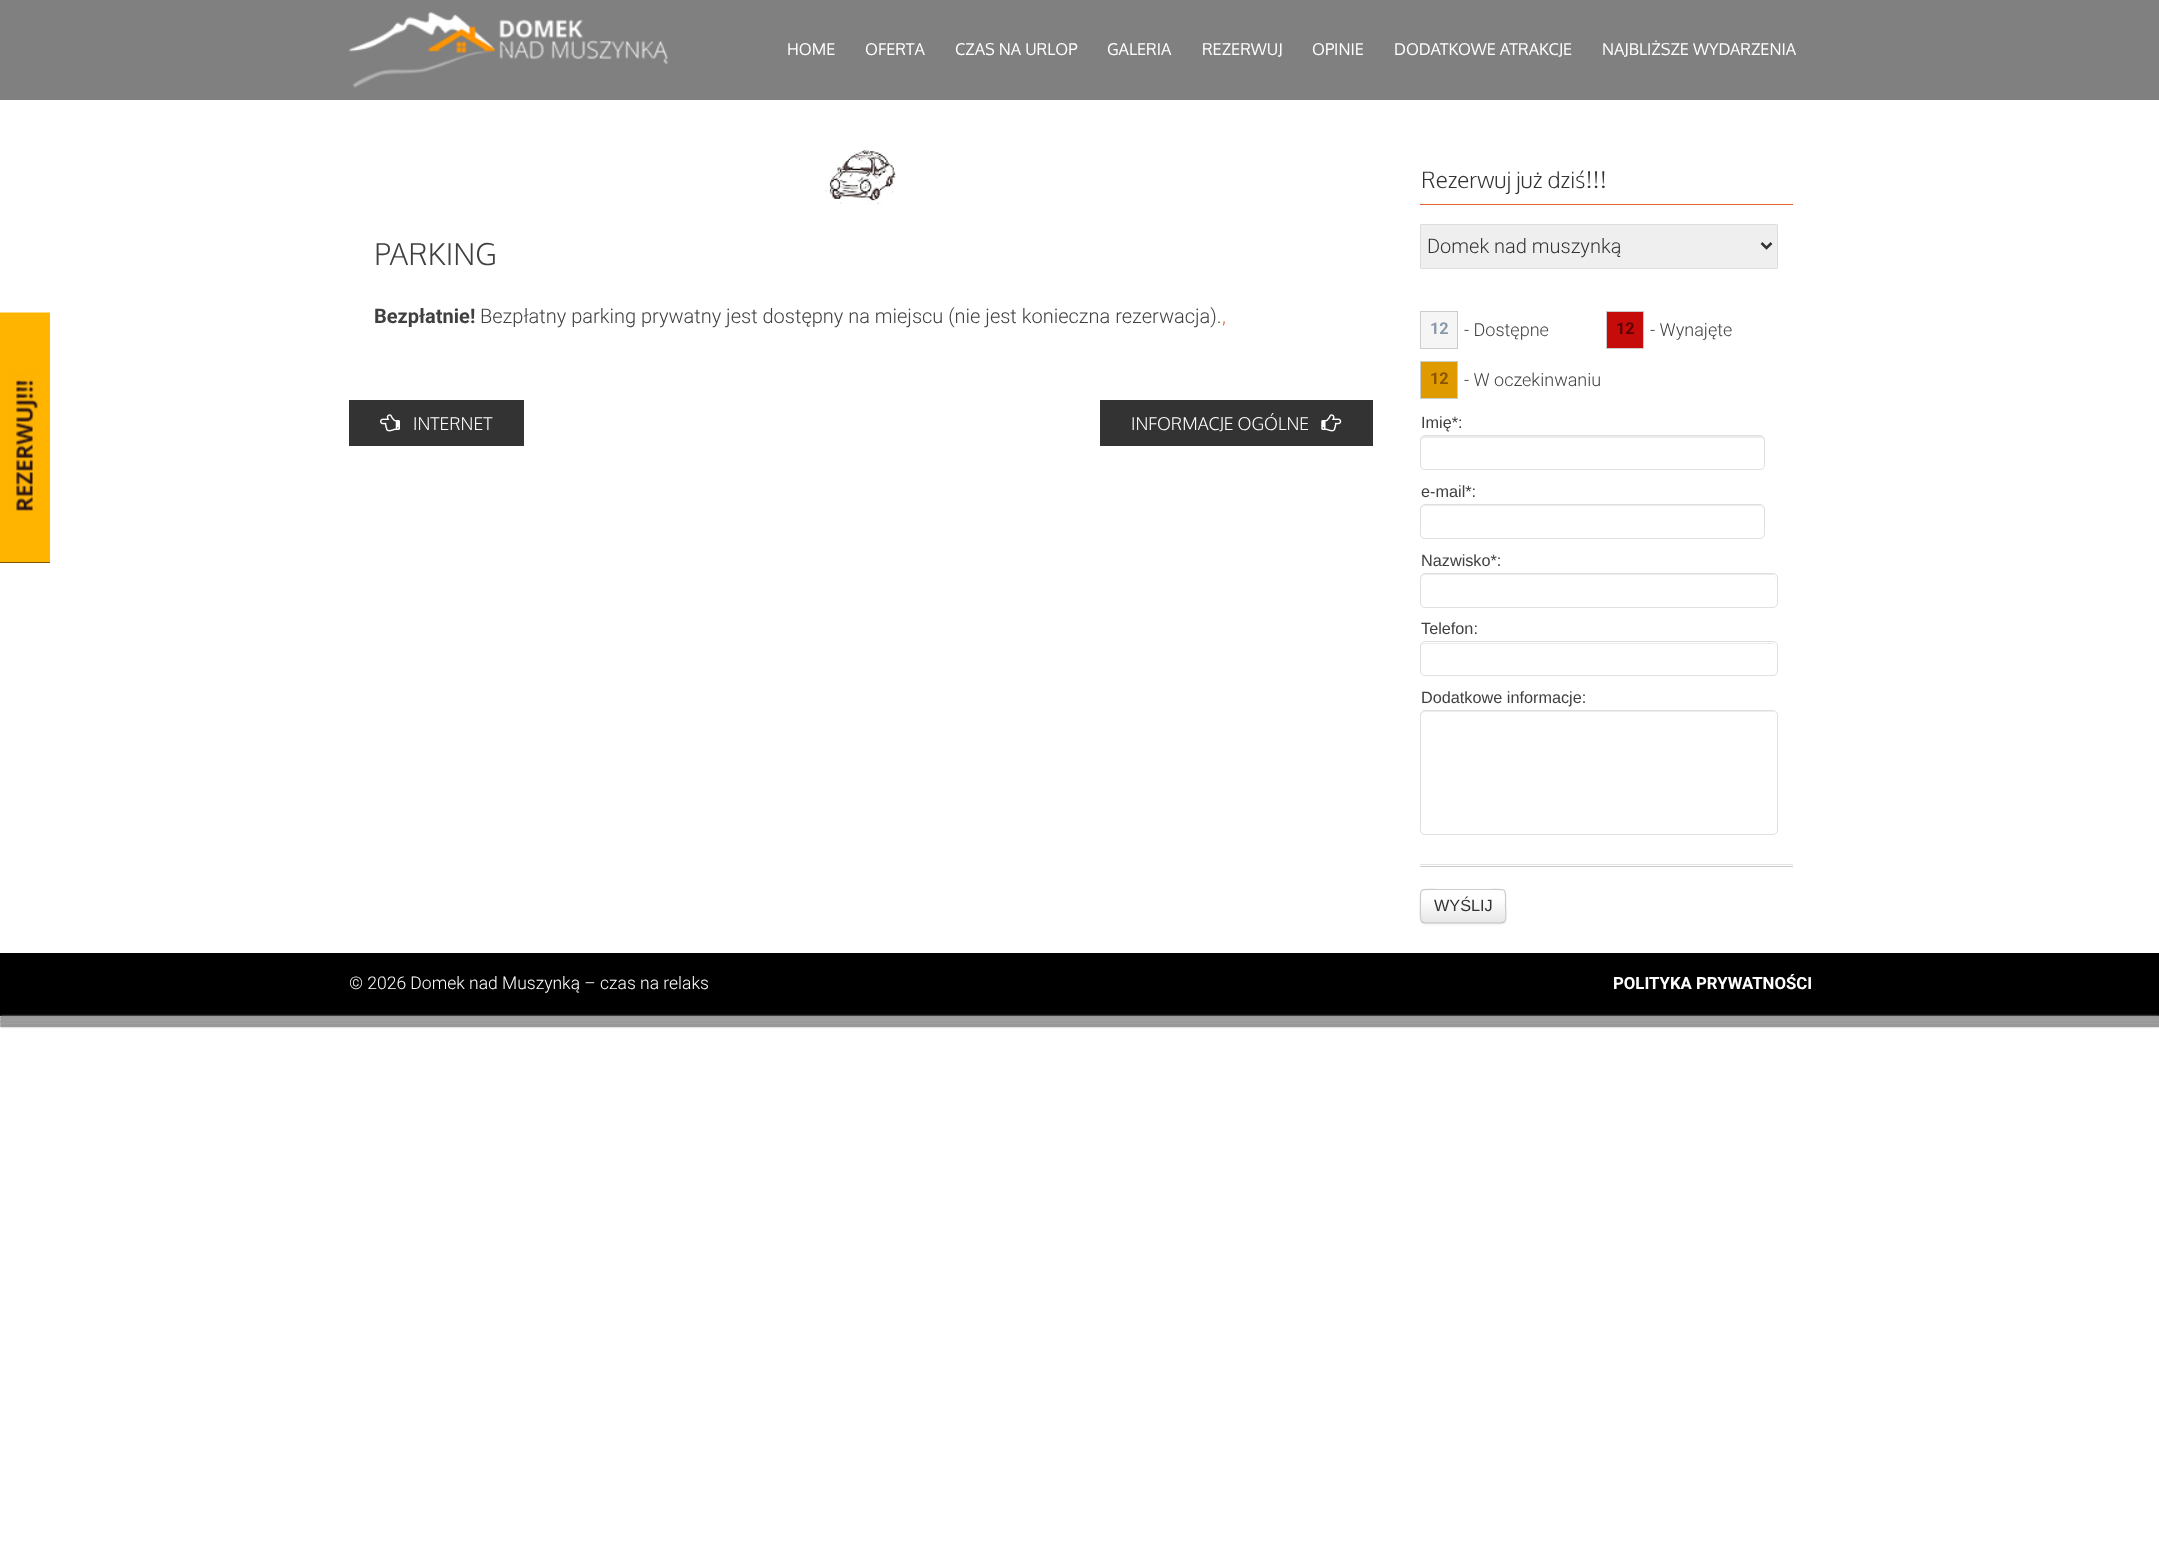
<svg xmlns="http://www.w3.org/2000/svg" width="2159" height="1554">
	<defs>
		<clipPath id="clip1"><rect x="1420" y="889" width="86" height="35" rx="5" /></clipPath>
		<linearGradient id="g1" gradientUnits="userSpaceOnUse" x1="1463" y1="890" x2="1463" y2="923"><stop offset="0" stop-color="#FFFFFF" /><stop offset="0.25" stop-color="#FFFFFF" /><stop offset="1" stop-color="#E6E6E6" /></linearGradient>
	</defs>
	<rect width="100%" height="100%" fill="#FFFFFF" />
	<rect x="0" y="0" width="2159" height="100" fill="#808080" />
	<image x="348" y="12" width="320" height="76" href="assets/img1.png" />
	<g font-family="Oxygen" font-size="16.25" fill="#FFFFFF">
		<text x="787" y="55">HOME</text>
		<text x="865" y="55">OFERTA</text>
		<text x="955" y="55">CZAS NA URLOP</text>
		<text x="1107" y="55">GALERIA</text>
		<text x="1202" y="55">REZERWUJ</text>
		<text x="1312" y="55">OPINIE</text>
		<text x="1394" y="55">DODATKOWE ATRAKCJE</text>
		<text x="1602" y="55">NAJBLIŻSZE WYDARZENIA</text>
	</g>
	<rect x="0" y="562" width="50" height="1" fill="#000000" />
	<image x="0" y="312" width="50" height="251" href="assets/img2.png" />
	<image x="825" y="149" width="71" height="56" href="assets/img3.png" />
	<text x="374" y="265" font-family="Oxygen" font-size="30" font-weight="300" fill="#404040">PARKING</text>
	<text x="374" y="323" font-family="Roboto" font-size="20" font-weight="700" fill="#404040">Bezpłatnie!</text>
	<text x="480" y="323" font-family="Roboto" font-size="20" font-weight="300" fill="#404040">Bezpłatny parking prywatny jest dostępny na miejscu (nie jest konieczna rezerwacja).</text>
	<text x="1222" y="323" font-family="Roboto" font-size="20" font-weight="300" fill="#E66432">,</text>
	<rect x="349" y="400" width="175" height="46" fill="#333333" />
	<image x="380" y="414" width="20" height="18" href="assets/img4.png" />
	<text x="413" y="430" font-family="Oxygen" font-size="17.5" font-weight="300" fill="#FFFFFF">INTERNET</text>
	<rect x="1100" y="400" width="273" height="46" fill="#333333" />
	<text x="1131" y="430" font-family="Oxygen" font-size="17.5" font-weight="300" fill="#FFFFFF">INFORMACJE OGÓLNE</text>
	<image x="1321" y="414" width="21" height="18" href="assets/img5.png" />
	<rect x="1420" y="204" width="373" height="1" fill="#E66432" />
	<text x="1421" y="188" font-family="Oxygen" font-size="22.5" font-weight="300" fill="#333333">Rezerwuj już dziś!!!</text>
	<rect x="1420.5" y="224.5" width="357" height="44" rx="0.5" fill="#EFEFEF" stroke="#DDDDDD" />
	<path d="M1761.5 243L1766.5 248L1771.5 243" fill="none" stroke="#333333" stroke-width="2.5" />
	<text x="1427" y="253" font-family="Roboto" font-size="20" font-weight="300" fill="#333333">Domek nad muszynką</text>
	<rect x="1420.5" y="311.5" width="37" height="37" fill="#F5F5F5" stroke="#CCCCCC" />
	<text x="1430" y="334" font-family="Roboto" font-size="16.25" font-weight="700" fill="#8899AA">12</text>
	<text x="1464" y="336" font-family="Roboto" font-size="18" font-weight="300" fill="#404040">- Dostępne</text>
	<rect x="1606.5" y="311.5" width="37" height="37" fill="#C60B0B" stroke="#CCCCCC" />
	<text x="1616" y="334" font-family="Roboto" font-size="16.25" font-weight="700" fill="#5F0000">12</text>
	<text x="1650" y="336" font-family="Roboto" font-size="18" font-weight="300" fill="#404040">- Wynajęte</text>
	<rect x="1420.5" y="361.5" width="37" height="37" fill="#DF9A00" stroke="#CCCCCC" />
	<text x="1430" y="384" font-family="Roboto" font-size="16.25" font-weight="700" fill="#885500">12</text>
	<text x="1464" y="386" font-family="Roboto" font-size="18" font-weight="300" fill="#404040">- W oczekinwaniu</text>
	<text x="1421" y="428" font-family="Liberation Sans" font-size="16.25" fill="#404040">Imię*:</text>
	<path d="M1425 438H1760C1762 438 1764 439 1764 441V440C1764 438 1762 436 1760 436H1425C1423 436 1421 438 1421 440V441C1421 439 1423 438 1425 438Z" fill="#ECECEC" />
	<rect x="1420.5" y="435.5" width="344" height="34" rx="4.5" fill="none" stroke="#DFDFDF" />
	<text x="1421" y="497" font-family="Liberation Sans" font-size="16.25" fill="#404040">e-mail*:</text>
	<path d="M1425 506H1760C1762 506 1764 508 1764 510V509C1764 507 1762 505 1760 505H1425C1423 505 1421 507 1421 509V510C1421 508 1423 506 1425 506Z" fill="#ECECEC" />
	<rect x="1420.5" y="504.5" width="344" height="34" rx="4.5" fill="none" stroke="#DFDFDF" />
	<text x="1421" y="566" font-family="Liberation Sans" font-size="16.25" fill="#404040">Nazwisko*:</text>
	<path d="M1425 575H1774L1776 577V579L1775 576L1773 574H1425C1422 574 1421 576 1421 579C1421 577 1423 575 1425 575Z" fill="#ECECEC" />
	<rect x="1420.5" y="573.5" width="357" height="34" rx="4.5" fill="none" stroke="#DFDFDF" />
	<text x="1421" y="634" font-family="Liberation Sans" font-size="16.25" fill="#404040">Telefon:</text>
	<path d="M1425 644H1772C1775 644 1776 645 1776 648L1775 645L1773 643H1425C1422 643 1421 645 1421 648C1421 645 1423 644 1425 644Z" fill="#ECECEC" />
	<rect x="1420.5" y="641.5" width="357" height="34" rx="4.5" fill="none" stroke="#DFDFDF" />
	<text x="1421" y="703" font-family="Liberation Sans" font-size="16.25" fill="#404040">Dodatkowe informacje:</text>
	<path d="M1425 712H1774L1776 714V716L1775 713L1773 711H1425C1422 711 1421 713 1421 716C1421 714 1423 712 1425 712Z" fill="#ECECEC" />
	<rect x="1420.5" y="710.5" width="357" height="124" rx="4.5" fill="none" stroke="#DFDFDF" />
	<rect x="1420" y="866" width="373" height="1" fill="#CCCCCC" />
	<rect x="1420" y="864" width="373" height="1" fill="#E5E5E5" />
	<rect x="1420" y="890" width="86" height="35" rx="5" fill="#000000" fill-opacity="0.05" filter="blur(1px)" />
	<rect x="1420" y="889" width="86" height="35" rx="5" fill="#FAFAFA" />
	<g clip-path="url(#clip1)">
		<rect x="1421" y="890" width="84" height="33" fill="url(#g1)" />
	</g>
	<path d="M1504.5 922L1501.5 923H1424.5L1422 922" fill="none" stroke="#BBBBBB" stroke-width="1.2" />
	<path d="M1422 922C1419.5 919.5 1420.5 909.5 1420.5 906C1420.5 887 1418 889.5 1437.5 889.5H1488.5C1508 889.5 1505.5 887 1505.5 906C1505.5 909.5 1507 919.5 1504.5 922" fill="none" stroke="#CCCCCC" stroke-width="1.2" />
	<text x="1434" y="911" font-family="Liberation Sans" font-size="16.25" fill="#333333">WYŚLIJ</text>
	<rect x="0" y="953" width="2159" height="63" fill="#000000" />
	<text x="349" y="989" font-family="Roboto" font-size="17.5" font-weight="300" fill="#FFFFFF">© 2026 Domek nad Muszynką – czas na relaks</text>
	<text x="1613" y="989" font-family="Roboto" font-size="16.75" font-weight="700" fill="#FFFFFF">POLITYKA PRYWATNOŚCI</text>
	<rect x="0" y="1016" width="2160" height="3" rx="1.5" fill="#AAAAAA" filter="blur(1px)" />
	<rect x="0" y="1016" width="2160" height="3" rx="1.5" fill="#999999" />
	<rect x="0" y="1019" width="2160" height="3" rx="1.5" fill="#AAAAAA" filter="blur(1px)" />
	<rect x="0" y="1019" width="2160" height="3" rx="1.5" fill="#999999" />
	<rect x="0" y="1021" width="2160" height="3" rx="1.5" fill="#AAAAAA" filter="blur(1px)" />
	<rect x="0" y="1021" width="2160" height="3" rx="1.5" fill="#999999" />
	<rect x="0" y="1024" width="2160" height="3" rx="1.5" fill="#AAAAAA" filter="blur(1px)" />
	<rect x="0" y="1024" width="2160" height="3" rx="1.5" fill="#999999" />
</svg>
